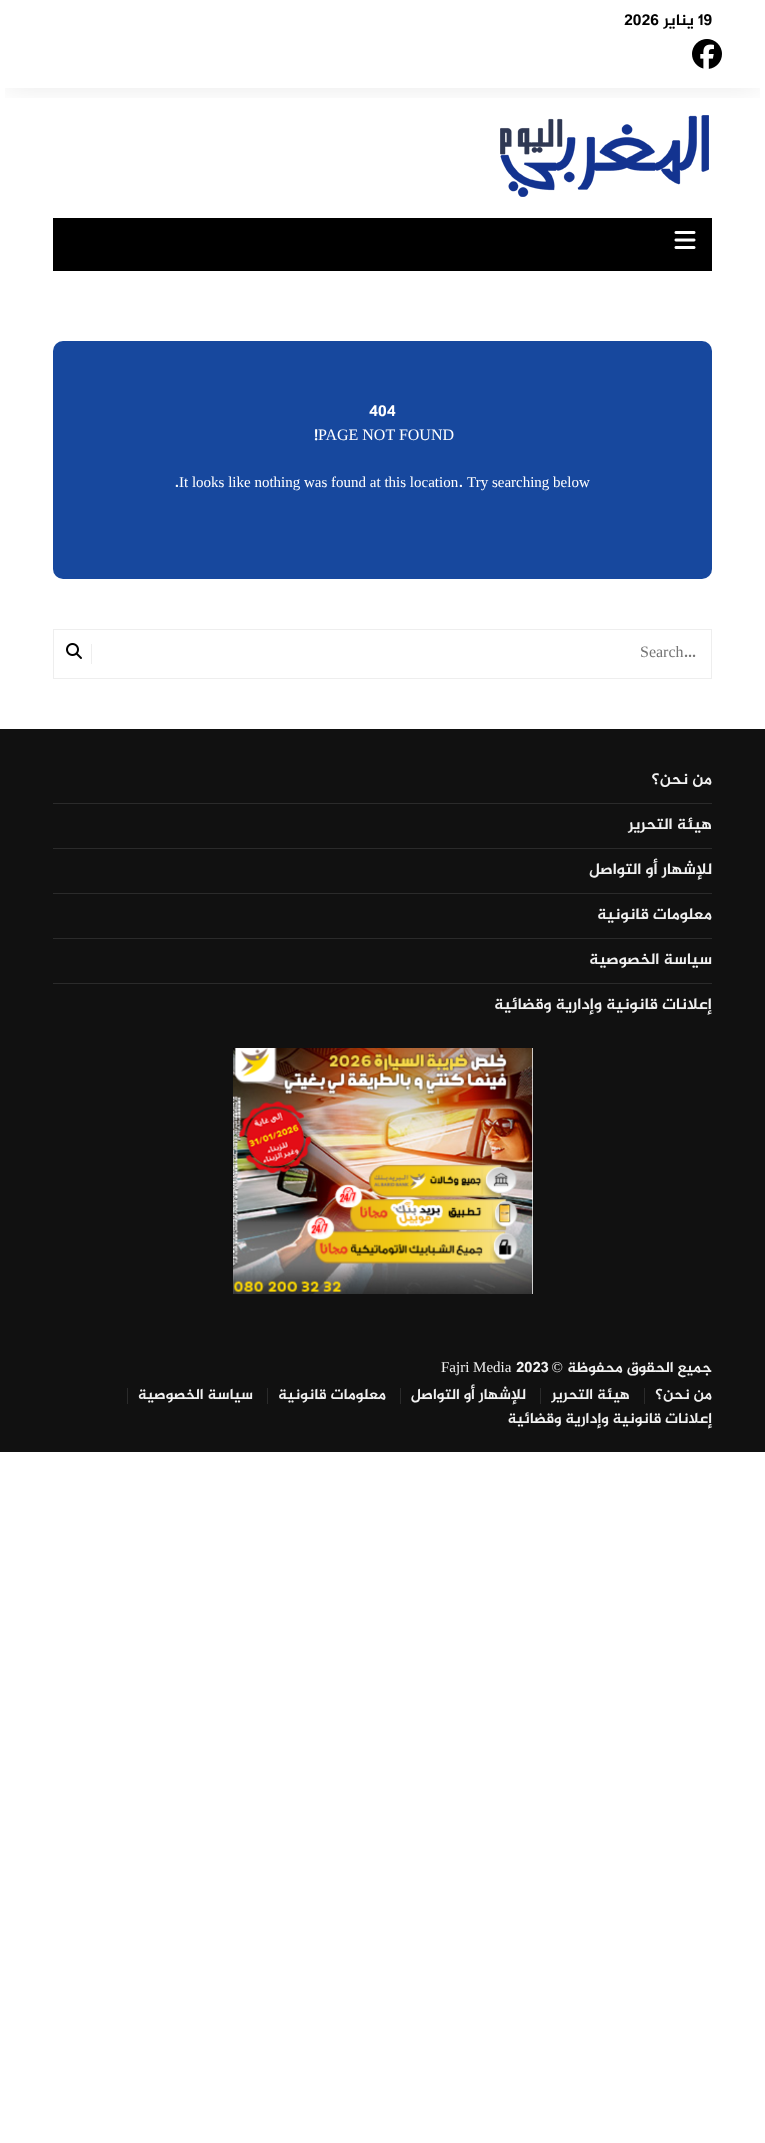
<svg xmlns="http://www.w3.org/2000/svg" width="765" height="2143">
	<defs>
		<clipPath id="clip1"><rect x="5" y="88" width="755" height="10" /></clipPath>
	</defs>
	<rect width="100%" height="100%" fill="#FFFFFF" />
	<g clip-path="url(#clip1)">
		<rect x="5" y="7" width="755" height="78" fill="#000000" fill-opacity="0.1" filter="blur(15px)" />
	</g>
	<text x="698" y="25" font-family="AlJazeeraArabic" font-size="16" font-weight="700" fill="#010101">19</text>
	<text x="694" y="25" font-family="AlJazeeraArabic" font-size="16" font-weight="700" direction="rtl" fill="#010101">يناير</text>
	<text x="624" y="25" font-family="AlJazeeraArabic" font-size="16" font-weight="700" fill="#010101">2026</text>
	<image x="692" y="39" width="30" height="30" href="assets/img1.png" />
	<image x="500" y="115" width="209" height="82" href="assets/img2.png" />
	<rect x="53" y="218" width="659" height="53" fill="#000000" />
	<image x="674" y="231" width="22" height="18" href="assets/img3.png" />
	<rect x="53" y="341" width="659" height="238" rx="10" fill="#17489E" />
	<text x="369" y="416" font-family="AlJazeeraArabic" font-size="16" font-weight="700" fill="#FFFFFF">404</text>
	<text x="318" y="440" font-family="Liberation Serif" font-size="16" fill="#FFFFFF">PAGE NOT FOUND</text>
	<text x="314" y="440" font-family="AlJazeeraArabic" font-size="16" font-weight="700" fill="#FFFFFF">!</text>
	<text x="467" y="487" font-family="Liberation Serif" font-size="15" fill="#FFFFFF">Try searching below</text>
	<text x="459" y="487" font-family="AlJazeeraArabic" font-size="15" font-weight="700" fill="#FFFFFF">.</text>
	<text x="179" y="487" font-family="Liberation Serif" font-size="15" fill="#FFFFFF">It looks like nothing was found at this location</text>
	<text x="175" y="487" font-family="AlJazeeraArabic" font-size="15" font-weight="700" fill="#FFFFFF">.</text>
	<rect x="53.5" y="629.5" width="658" height="49" fill="none" stroke="#EEEEEE" />
	<text x="684" y="657" font-family="AlJazeeraArabic" font-size="16" font-weight="700" fill="#757575">...</text>
	<text x="640" y="657" font-family="Liberation Serif" font-size="16" fill="#757575">Search</text>
	<rect x="91" y="644" width="1" height="20" fill="#EEEEEE" />
	<image x="66" y="643" width="16" height="16" href="assets/img4.png" />
	<rect x="0" y="729" width="765" height="723" fill="#111111" />
	<rect x="53" y="803" width="659" height="1" fill="#2B2B2B" />
	<text x="712" y="784" font-family="AlJazeeraArabic" font-size="16" font-weight="700" direction="rtl" fill="#F1F1F1">من نحن؟</text>
	<rect x="53" y="848" width="659" height="1" fill="#2B2B2B" />
	<text x="712" y="829" font-family="AlJazeeraArabic" font-size="16" font-weight="700" direction="rtl" fill="#F1F1F1">هيئة التحرير</text>
	<rect x="53" y="893" width="659" height="1" fill="#2B2B2B" />
	<text x="712" y="874" font-family="AlJazeeraArabic" font-size="16" font-weight="700" direction="rtl" fill="#F1F1F1">للإشهار أو التواصل</text>
	<rect x="53" y="938" width="659" height="1" fill="#2B2B2B" />
	<text x="712" y="919" font-family="AlJazeeraArabic" font-size="16" font-weight="700" direction="rtl" fill="#F1F1F1">معلومات قانونية</text>
	<rect x="53" y="983" width="659" height="1" fill="#2B2B2B" />
	<g font-family="AlJazeeraArabic" font-size="16" font-weight="700" direction="rtl" fill="#F1F1F1">
		<text x="712" y="964">سياسة الخصوصية</text>
		<text x="712" y="1009">إعلانات قانونية وإدارية وقضائية</text>
	</g>
	<image x="233" y="1048" width="300" height="246" href="assets/img5.png" />
	<text x="712" y="1372" font-family="AlJazeeraArabic" font-size="15" font-weight="700" direction="rtl" fill="#F1F1F1">جميع الحقوق محفوظة</text>
	<text x="563" y="1372" font-family="Liberation Serif" font-size="15" direction="rtl" fill="#F1F1F1">©</text>
	<text x="516" y="1372" font-family="AlJazeeraArabic" font-size="15" font-weight="700" fill="#F1F1F1">2023</text>
	<text x="441" y="1372" font-family="Liberation Serif" font-size="15" fill="#F1F1F1">Fajri Media</text>
	<rect x="644" y="1388" width="1" height="16" fill="#2B2B2B" />
	<text x="712" y="1399" font-family="AlJazeeraArabic" font-size="15" font-weight="700" direction="rtl" fill="#F1F1F1">من نحن؟</text>
	<rect x="540" y="1388" width="1" height="16" fill="#2B2B2B" />
	<text x="630" y="1399" font-family="AlJazeeraArabic" font-size="15" font-weight="700" direction="rtl" fill="#F1F1F1">هيئة التحرير</text>
	<rect x="400" y="1388" width="1" height="16" fill="#2B2B2B" />
	<text x="526" y="1399" font-family="AlJazeeraArabic" font-size="15" font-weight="700" direction="rtl" fill="#F1F1F1">للإشهار أو التواصل</text>
	<rect x="267" y="1388" width="1" height="16" fill="#2B2B2B" />
	<text x="386" y="1399" font-family="AlJazeeraArabic" font-size="15" font-weight="700" direction="rtl" fill="#F1F1F1">معلومات قانونية</text>
	<rect x="127" y="1388" width="1" height="16" fill="#2B2B2B" />
	<g font-family="AlJazeeraArabic" font-size="15" font-weight="700" direction="rtl" fill="#F1F1F1">
		<text x="253" y="1399">سياسة الخصوصية</text>
		<text x="712" y="1423">إعلانات قانونية وإدارية وقضائية</text>
	</g>
</svg>
